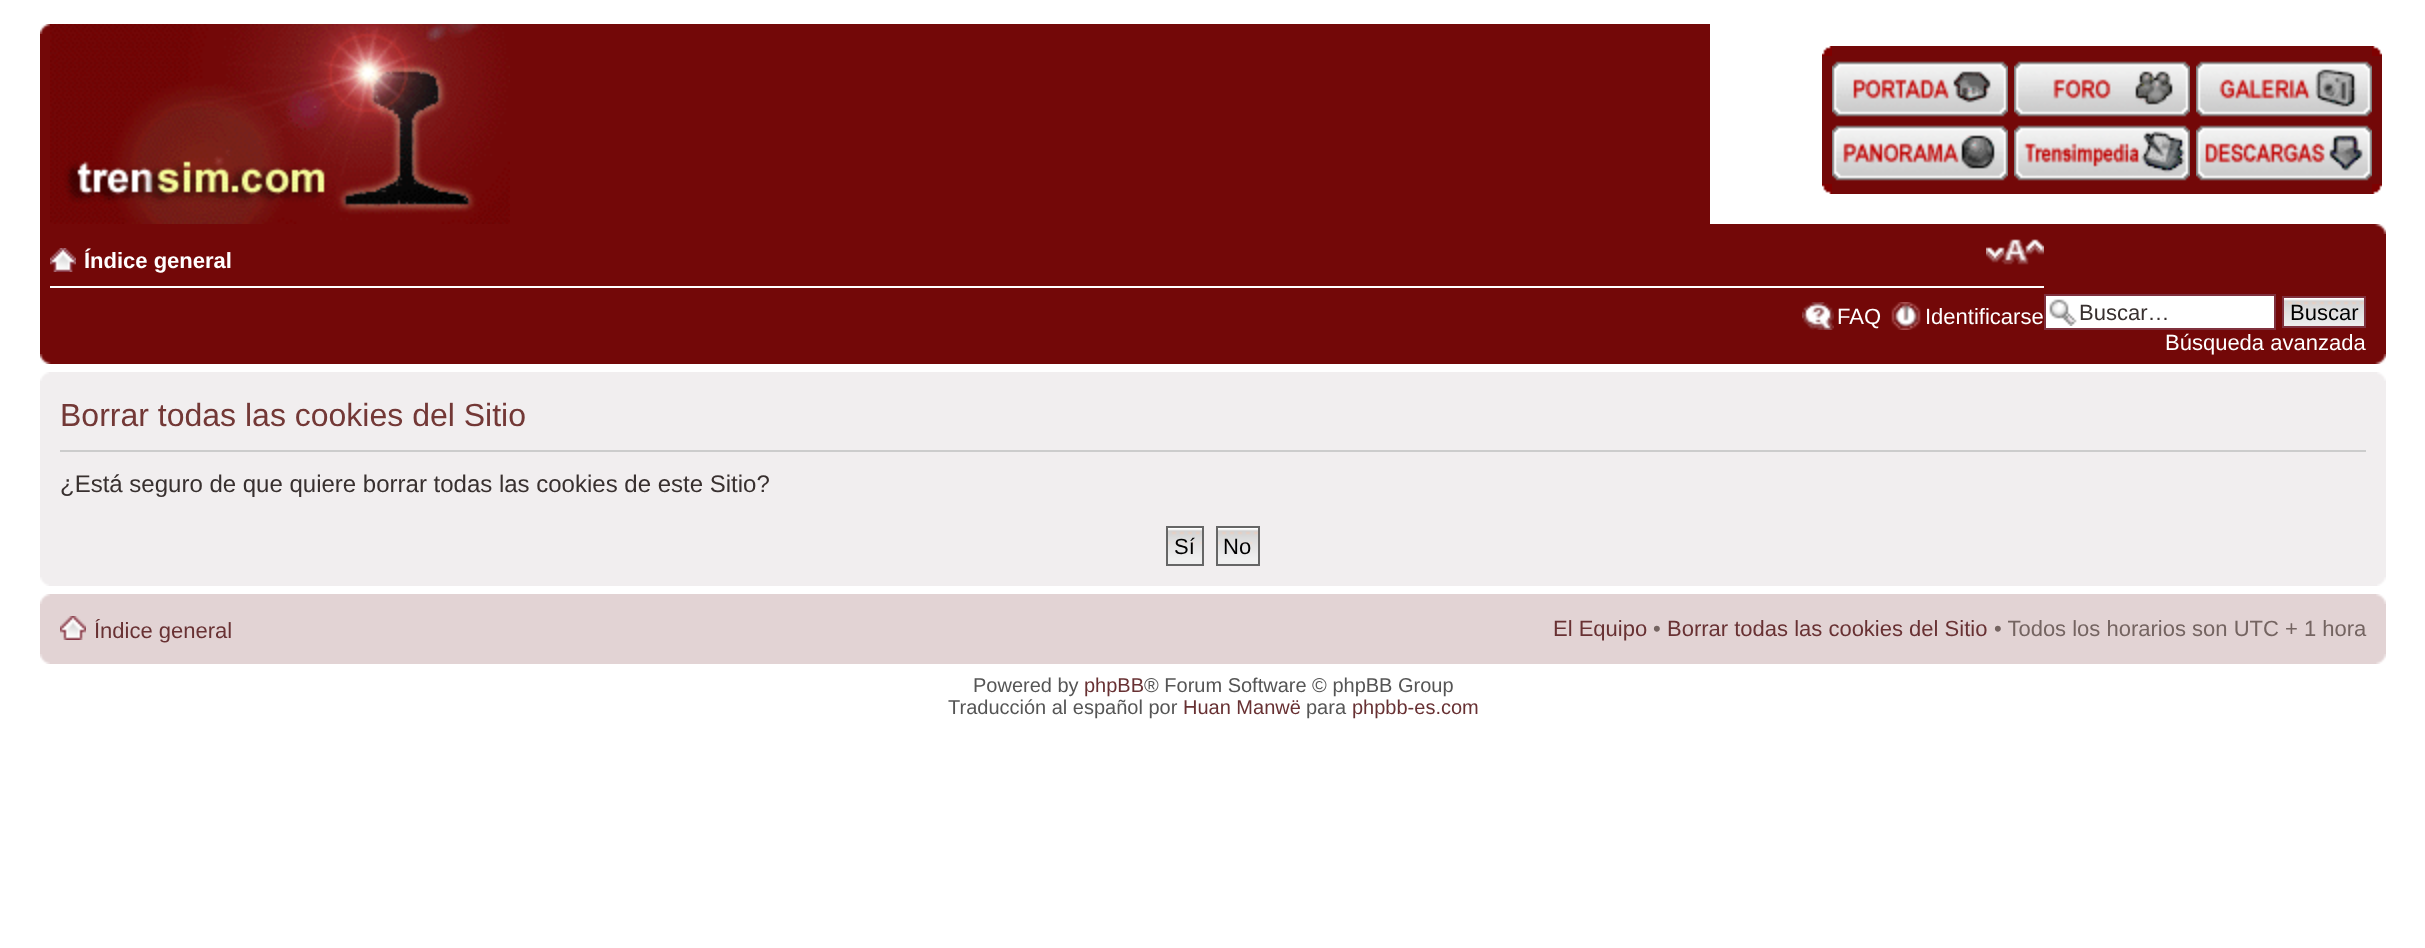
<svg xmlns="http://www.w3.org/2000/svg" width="2425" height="948">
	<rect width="100%" height="100%" fill="#FFFFFF" />
	<rect x="40" y="24" width="1670" height="200" fill="#730808" />
	<image x="40" y="24" width="10" height="10" href="assets/img1.png" />
	<image x="50" y="24" width="460" height="200" href="assets/img2.png" />
	<image x="1822" y="46" width="10" height="10" href="assets/img3.png" />
	<rect x="1832" y="46" width="540" height="10" fill="#730808" />
	<image x="2372" y="46" width="10" height="10" href="assets/img4.png" />
	<rect x="1822" y="56" width="560" height="128" fill="#730808" />
	<image x="1832" y="61" width="176" height="56" href="assets/img5.png" />
	<image x="2014" y="61" width="176" height="56" href="assets/img6.png" />
	<image x="2196" y="61" width="176" height="56" href="assets/img7.png" />
	<image x="1832" y="125" width="176" height="56" href="assets/img8.png" />
	<image x="2014" y="125" width="176" height="56" href="assets/img9.png" />
	<image x="2196" y="125" width="176" height="56" href="assets/img10.png" />
	<image x="1822" y="184" width="10" height="10" href="assets/img11.png" />
	<rect x="1832" y="184" width="540" height="10" fill="#730808" />
	<image x="2372" y="184" width="10" height="10" href="assets/img12.png" />
	<rect x="40" y="224" width="2346" height="140" fill="#730808" />
	<image x="2374" y="224" width="12" height="10" href="assets/img13.png" />
	<rect x="50" y="286" width="1994" height="2" fill="#FFFFFF" />
	<image x="50" y="248" width="26" height="24" href="assets/img14.png" />
	<text x="84" y="268" font-family="Liberation Sans" font-size="22" font-weight="700" fill="#FFFFFF">Índice general</text>
	<image x="1986" y="239" width="58" height="26" href="assets/img15.png" />
	<image x="1802" y="302" width="32" height="28" href="assets/img16.png" />
	<text x="1837" y="324" font-family="Liberation Sans" font-size="22" fill="#FFFFFF">FAQ</text>
	<image x="1891" y="302" width="30" height="28" href="assets/img17.png" />
	<text x="1925" y="324" font-family="Liberation Sans" font-size="22" fill="#FFFFFF">Identificarse</text>
	<rect x="2046" y="296" width="228" height="32" fill="#FFFFFF" />
	<image x="2049" y="299" width="28" height="27" href="assets/img18.png" />
	<rect x="2045" y="295" width="230" height="34" fill="none" stroke="#7F313E" stroke-width="2" />
	<text x="2079" y="320" font-family="Liberation Sans" font-size="22" fill="#38302F">Buscar…</text>
	<image x="2284" y="298" width="80" height="28" href="assets/img19.png" />
	<rect x="2283" y="297" width="82" height="30" fill="none" stroke="#7F313E" stroke-width="2" />
	<text x="2290" y="320" font-family="Liberation Sans" font-size="22" fill="#000000">Buscar</text>
	<text x="2165" y="350" font-family="Liberation Sans" font-size="22" fill="#FFFFFF">Búsqueda avanzada</text>
	<image x="40" y="354" width="11" height="10" href="assets/img20.png" />
	<image x="2375" y="354" width="11" height="10" href="assets/img21.png" />
	<rect x="40" y="372" width="2346" height="214" fill="#F1EEEF" />
	<image x="40" y="372" width="9" height="9" href="assets/img22.png" />
	<image x="2377" y="372" width="9" height="9" href="assets/img23.png" />
	<rect x="60" y="450" width="2306" height="2" fill="#CCCCCC" />
	<text x="60" y="426" font-family="Liberation Sans" font-size="32" fill="#733836">Borrar todas las cookies del Sitio</text>
	<text x="60" y="492" font-family="Liberation Sans" font-size="24" fill="#38302F">¿Está seguro de que quiere borrar todas las cookies de este Sitio?</text>
	<image x="1168" y="528" width="34" height="36" href="assets/img24.png" />
	<rect x="1167" y="527" width="36" height="38" fill="none" stroke="#666666" stroke-width="2" />
	<text x="1174" y="554" font-family="Liberation Sans" font-size="22" fill="#000000">Sí</text>
	<image x="1218" y="528" width="40" height="36" href="assets/img25.png" />
	<rect x="1217" y="527" width="42" height="38" fill="none" stroke="#666666" stroke-width="2" />
	<text x="1223" y="554" font-family="Liberation Sans" font-size="22" fill="#000000">No</text>
	<image x="40" y="577" width="9" height="9" href="assets/img26.png" />
	<image x="2377" y="577" width="9" height="9" href="assets/img27.png" />
	<rect x="40" y="594" width="2346" height="70" fill="#E2D3D4" />
	<image x="40" y="594" width="10" height="10" href="assets/img28.png" />
	<image x="2376" y="594" width="10" height="10" href="assets/img29.png" />
	<image x="60" y="616" width="26" height="24" href="assets/img30.png" />
	<g font-family="Liberation Sans" font-size="22" fill="#683133">
		<text x="94" y="638">Índice general</text>
		<text x="1553" y="636">El Equipo</text>
	</g>
	<text x="1653" y="636" font-family="Liberation Sans" font-size="22" fill="#746461">•</text>
	<text x="1667" y="636" font-family="Liberation Sans" font-size="22" fill="#683133">Borrar todas las cookies del Sitio</text>
	<text x="1994" y="636" font-family="Liberation Sans" font-size="22" fill="#746461">• Todos los horarios son UTC + 1 hora</text>
	<image x="40" y="654" width="10" height="10" href="assets/img31.png" />
	<image x="2376" y="654" width="10" height="10" href="assets/img32.png" />
	<text x="973" y="692" font-family="Liberation Sans" font-size="20" fill="#555555">Powered by</text>
	<text x="1084" y="692" font-family="Liberation Sans" font-size="20" fill="#683133">phpBB</text>
	<g font-family="Liberation Sans" font-size="20" fill="#555555">
		<text x="1144" y="692">® Forum Software © phpBB Group</text>
		<text x="948" y="714">Traducción al español por</text>
	</g>
	<text x="1183" y="714" font-family="Liberation Sans" font-size="20" fill="#683133">Huan Manwë</text>
	<text x="1306" y="714" font-family="Liberation Sans" font-size="20" fill="#555555">para</text>
	<text x="1352" y="714" font-family="Liberation Sans" font-size="20" fill="#683133">phpbb-es.com</text>
</svg>
